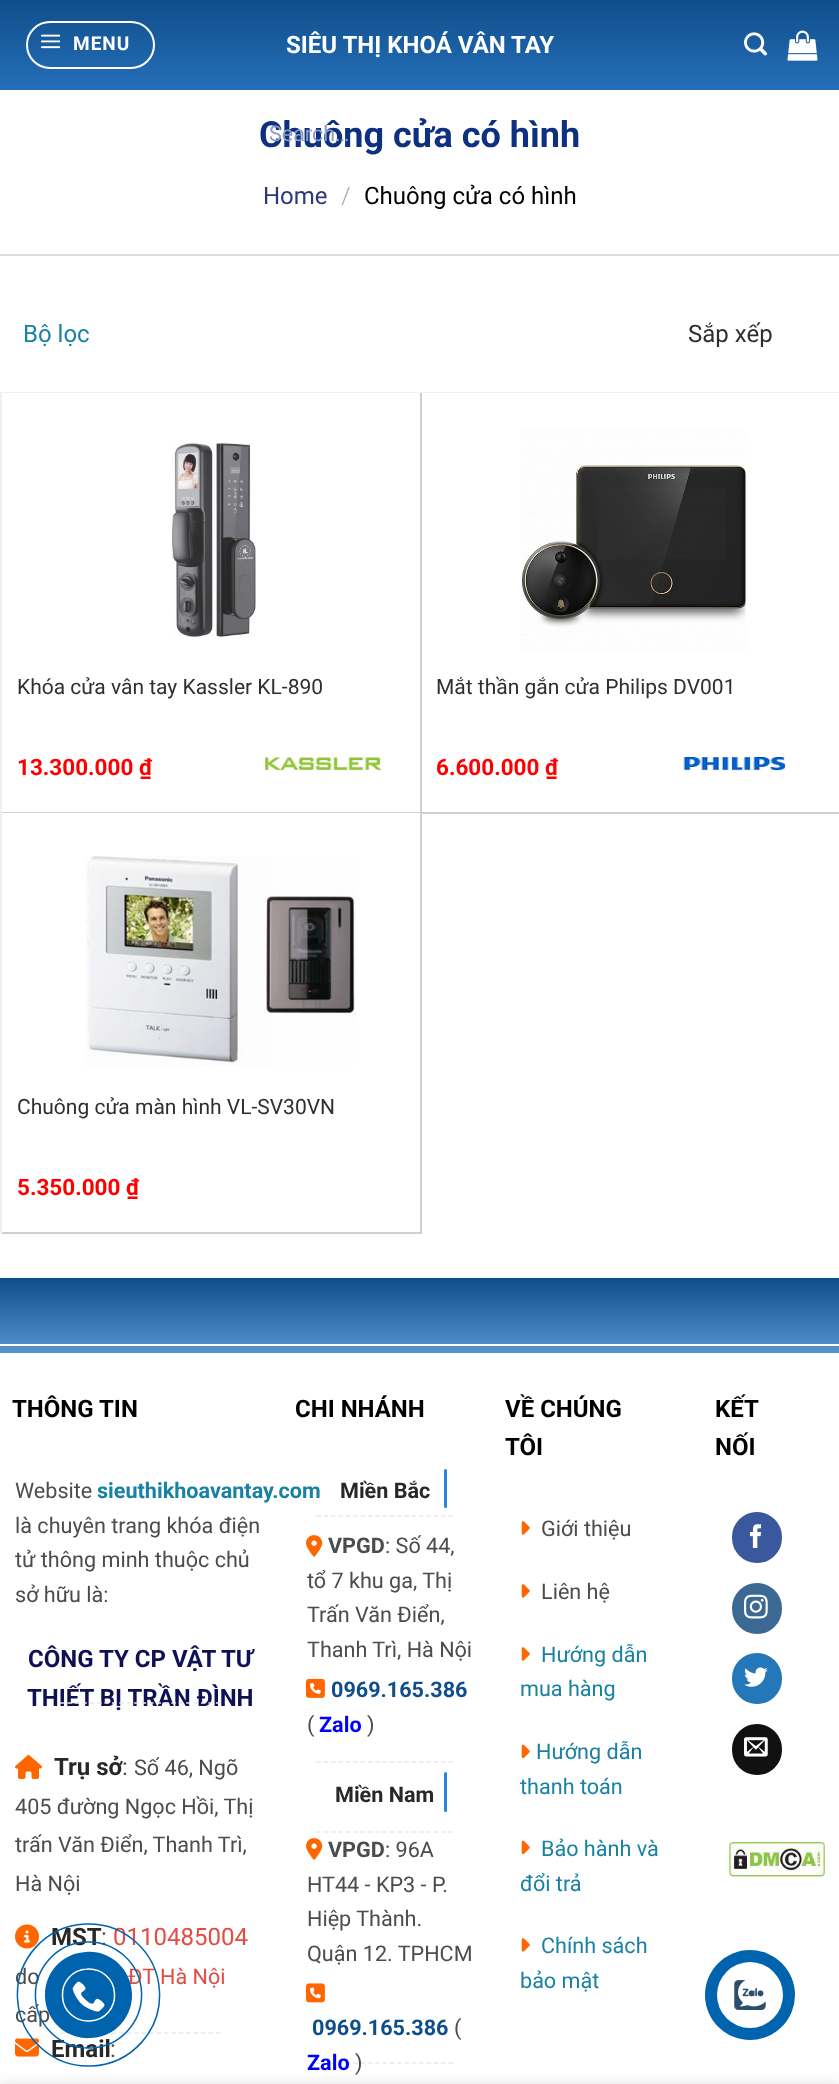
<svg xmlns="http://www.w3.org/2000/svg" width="839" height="2084">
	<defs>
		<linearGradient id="g1" gradientUnits="userSpaceOnUse" x1="420" y1="0" x2="420" y2="90"><stop offset="0" stop-color="#104E8B" /><stop offset="1" stop-color="#256FB9" /></linearGradient>
		<linearGradient id="g2" gradientUnits="userSpaceOnUse" x1="420" y1="1353" x2="420" y2="1278"><stop offset="0" stop-color="#5593D1" /><stop offset="1" stop-color="#104E8B" /></linearGradient>
	</defs>
	<rect width="100%" height="100%" fill="#FFFFFF" />
	<rect x="0" y="0" width="839" height="90" fill="url(#g1)" />
	<rect x="27" y="22" width="127" height="46" rx="23" fill="none" stroke="#FFFFFF" stroke-width="2" />
	<image x="40" y="34" width="21" height="15" href="assets/img1.png" />
	<text x="73" y="50" font-family="Roboto" font-size="19" font-weight="700" letter-spacing="1" fill="#FFFFFF">MENU</text>
	<text x="286" y="53" font-family="Roboto" font-size="24" font-weight="700" fill="#FFFFFF">SIÊU THỊ KHOÁ VÂN TAY</text>
	<image x="787" y="30" width="31" height="31" href="assets/img2.png" />
	<image x="744" y="32" width="23" height="24" href="assets/img3.png" />
	<text x="259" y="147" font-family="Roboto" font-size="36" font-weight="700" fill="#0E3080">Chuông cửa có hình</text>
	<text x="269" y="141" font-family="Roboto" font-size="21.5" fill="#8E9EC3">Search…</text>
	<rect x="0" y="254" width="839" height="2" fill="#DDDDDD" />
	<text x="263" y="204" font-family="Roboto" font-size="24" fill="#2D3877">Home</text>
	<text x="341" y="204" font-family="Roboto" font-size="24" font-weight="300" fill="#A6A6A6">/</text>
	<text x="364" y="204" font-family="Roboto" font-size="24" fill="#000000">Chuông cửa có hình</text>
	<text x="23" y="342" font-family="Roboto" font-size="24" fill="#1881A4">Bộ lọc</text>
	<text x="688" y="342" font-family="Roboto" font-size="24" fill="#2F2F2F">Sắp xếp</text>
	<rect x="0" y="392" width="839" height="1" fill="#F1F1F1" />
	<rect x="0" y="392" width="2" height="841" fill="#F1F1F1" />
	<rect x="420" y="393" width="2" height="840" fill="#CFCFCF" />
	<rect x="2" y="812" width="420" height="1" fill="#CFCFCF" />
	<image x="172" y="443" width="84" height="194" href="assets/img4.png" />
	<text x="17" y="694" font-family="Roboto" font-size="21" fill="#2F2F2F">Khóa cửa vân tay Kassler KL-890</text>
	<text x="17" y="775" font-family="Roboto" font-size="22.5" font-weight="700" fill="#FF0000">13.300.000 ₫</text>
	<image x="265" y="755" width="117" height="17" href="assets/img5.png" />
	<rect x="422" y="812" width="417" height="2" fill="#CFCFCF" />
	<image x="520" y="430" width="226" height="222" href="assets/img6.png" />
	<text x="436" y="694" font-family="Roboto" font-size="21" fill="#2F2F2F">Mắt thần gắn cửa Philips DV001</text>
	<text x="436" y="775" font-family="Roboto" font-size="22.5" font-weight="700" fill="#FF0000">6.600.000 ₫</text>
	<image x="683" y="757" width="103" height="14" href="assets/img7.png" />
	<rect x="2" y="1232" width="420" height="2" fill="#CFCFCF" />
	<image x="85" y="856" width="271" height="210" href="assets/img8.png" />
	<text x="17" y="1114" font-family="Roboto" font-size="21" fill="#2F2F2F">Chuông cửa màn hình VL-SV30VN</text>
	<text x="17" y="1195" font-family="Roboto" font-size="22.5" font-weight="700" fill="#FF0000">5.350.000 ₫</text>
	<rect x="0" y="1278" width="839" height="75" fill="url(#g2)" />
	<rect x="0" y="1344" width="839" height="2" fill="#FFFFFF" />
	<text x="12" y="1417" font-family="Roboto" font-size="24" font-weight="700" fill="#000000">THÔNG TIN</text>
	<text x="15" y="1498" font-family="Roboto" font-size="21.6" fill="#4C4C4C">Website</text>
	<text x="97" y="1498" font-family="Roboto" font-size="21.6" font-weight="700" fill="#1881A4">sieuthikhoavantay.com</text>
	<g font-family="Roboto" font-size="21.6" fill="#4C4C4C">
		<text x="15" y="1533">là chuyên trang khóa điện</text>
		<text x="15" y="1567">tử thông minh thuộc chủ</text>
		<text x="15" y="1602">sở hữu là:</text>
	</g>
	<g font-family="Roboto" font-size="24" font-weight="700" fill="#101054">
		<text x="28" y="1667">CÔNG TY CP VẬT TƯ</text>
		<text x="27" y="1706">THIẾT BỊ TRẦN ĐÌNH</text>
	</g>
	<image x="15" y="1755" width="27" height="24" href="assets/img9.png" />
	<text x="54" y="1775" font-family="Roboto" font-size="24" font-weight="700" fill="#282828">Trụ sở</text>
	<text x="122" y="1775" font-family="Roboto" font-size="24" fill="#4C4C4C">:</text>
	<g font-family="Roboto" font-size="21.6" fill="#4C4C4C">
		<text x="134" y="1775">Số 46, Ngõ</text>
		<text x="15" y="1814">405 đường Ngọc Hồi, Thị</text>
		<text x="15" y="1852">trấn Văn Điển, Thanh Trì,</text>
		<text x="15" y="1891">Hà Nội</text>
	</g>
	<path d="M60 1703H220.5" fill="none" stroke="#E9E9E9" stroke-width="1.5" stroke-dasharray="4.5 2.92" />
	<path d="M60 2033H220.5" fill="none" stroke="#E9E9E9" stroke-width="1.5" stroke-dasharray="4.5 2.92" />
	<image x="15" y="1924" width="24" height="25" href="assets/img10.png" />
	<text x="51" y="1945" font-family="Roboto" font-size="24" font-weight="700" fill="#282828">MST</text>
	<text x="101" y="1945" font-family="Roboto" font-size="24" fill="#4C4C4C">:</text>
	<text x="113" y="1945" font-family="Roboto" font-size="24" fill="#E14D43">0110485004</text>
	<text x="15" y="1984" font-family="Roboto" font-size="21.6" fill="#4C4C4C">do</text>
	<text x="128" y="1984" font-family="Roboto" font-size="21.6" fill="#E14D43">ĐT Hà Nội</text>
	<text x="15" y="2022" font-family="Roboto" font-size="21.6" fill="#4C4C4C">cấp</text>
	<image x="15" y="2038" width="24" height="19" href="assets/img11.png" />
	<text x="51" y="2057" font-family="Roboto" font-size="24" font-weight="700" fill="#282828">Email</text>
	<text x="110" y="2057" font-family="Roboto" font-size="24" fill="#4C4C4C">:</text>
	<text x="295" y="1417" font-family="Roboto" font-size="24" font-weight="700" fill="#000000">CHI NHÁNH</text>
	<text x="340" y="1498" font-family="Roboto" font-size="21.6" font-weight="700" fill="#282828">Miền Bắc</text>
	<rect x="444" y="1469" width="3" height="39" rx="1.5" fill="#2884DC" />
	<path d="M316.5 1516H453" fill="none" stroke="#E9E9E9" stroke-width="1.5" stroke-dasharray="4.5 2.83" />
	<path d="M316.5 1762H453" fill="none" stroke="#E9E9E9" stroke-width="1.5" stroke-dasharray="4.5 2.83" />
	<image x="306" y="1535" width="17" height="22" href="assets/img12.png" />
	<text x="328" y="1553" font-family="Roboto" font-size="21.6" font-weight="700" fill="#4C4C4C">VPGD</text>
	<g font-family="Roboto" font-size="21.6" fill="#4C4C4C">
		<text x="385" y="1553">: Số 44,</text>
		<text x="307" y="1588">tổ 7 khu ga, Thị</text>
		<text x="307" y="1622">Trấn Văn Điển,</text>
		<text x="307" y="1657">Thanh Trì, Hà Nội</text>
	</g>
	<image x="306" y="1678" width="19" height="20" href="assets/img13.png" />
	<text x="331" y="1697" font-family="Roboto" font-size="21.6" font-weight="700" fill="#104E8B">0969.165.386</text>
	<text x="307" y="1732" font-family="Roboto" font-size="21.6" fill="#4C4C4C">(</text>
	<text x="319" y="1732" font-family="Roboto" font-size="21.6" font-weight="700" fill="#0000FF">Zalo</text>
	<text x="367" y="1732" font-family="Roboto" font-size="21.6" fill="#4C4C4C">)</text>
	<text x="335" y="1802" font-family="Roboto" font-size="21.6" font-weight="700" fill="#282828">Miền Nam</text>
	<rect x="444" y="1772" width="3" height="40" rx="1.5" fill="#2884DC" />
	<path d="M316.5 1832H453" fill="none" stroke="#E9E9E9" stroke-width="1.5" stroke-dasharray="4.5 2.83" />
	<path d="M316.5 2063H453" fill="none" stroke="#E9E9E9" stroke-width="1.5" stroke-dasharray="4.5 2.83" />
	<image x="306" y="1838" width="17" height="22" href="assets/img12.png" />
	<text x="328" y="1857" font-family="Roboto" font-size="21.6" font-weight="700" fill="#4C4C4C">VPGD</text>
	<g font-family="Roboto" font-size="21.6" fill="#4C4C4C">
		<text x="385" y="1857">: 96A</text>
		<text x="307" y="1892">HT44 - KP3 - P.</text>
		<text x="307" y="1926">Hiệp Thành.</text>
		<text x="307" y="1961">Quận 12. TPHCM</text>
	</g>
	<image x="306" y="1983" width="19" height="20" href="assets/img14.png" />
	<text x="312" y="2035" font-family="Roboto" font-size="21.6" font-weight="700" fill="#104E8B">0969.165.386</text>
	<text x="454" y="2035" font-family="Roboto" font-size="21.6" fill="#4C4C4C">(</text>
	<text x="307" y="2070" font-family="Roboto" font-size="21.6" font-weight="700" fill="#0000FF">Zalo</text>
	<text x="355" y="2070" font-family="Roboto" font-size="21.6" fill="#4C4C4C">)</text>
	<g font-family="Roboto" font-size="24" font-weight="700" fill="#000000">
		<text x="505" y="1417">VỀ CHÚNG</text>
		<text x="505" y="1455">TÔI</text>
	</g>
	<image x="521" y="1521" width="9" height="14" href="assets/img15.png" />
	<text x="541" y="1536" font-family="Roboto" font-size="21.6" fill="#4C4C4C">Giới thiệu</text>
	<image x="521" y="1584" width="9" height="14" href="assets/img15.png" />
	<text x="541" y="1599" font-family="Roboto" font-size="21.6" fill="#4C4C4C">Liên hệ</text>
	<image x="521" y="1647" width="9" height="14" href="assets/img15.png" />
	<g font-family="Roboto" font-size="21.6" fill="#1881A4">
		<text x="541" y="1662">Hướng dẫn</text>
		<text x="520" y="1696">mua hàng</text>
	</g>
	<image x="521" y="1744" width="9" height="15" href="assets/img16.png" />
	<g font-family="Roboto" font-size="21.6" fill="#1881A4">
		<text x="536" y="1759">Hướng dẫn</text>
		<text x="520" y="1794">thanh toán</text>
	</g>
	<image x="521" y="1840" width="9" height="15" href="assets/img16.png" />
	<g font-family="Roboto" font-size="21.6" fill="#1881A4">
		<text x="541" y="1856">Bảo hành và</text>
		<text x="520" y="1891">đổi trả</text>
	</g>
	<image x="521" y="1938" width="9" height="14" href="assets/img15.png" />
	<g font-family="Roboto" font-size="21.6" fill="#1881A4">
		<text x="541" y="1953">Chính sách</text>
		<text x="520" y="1988">bảo mật</text>
	</g>
	<g font-family="Roboto" font-size="24" font-weight="700" fill="#000000">
		<text x="715" y="1417">KẾT</text>
		<text x="715" y="1455">NỐI</text>
	</g>
	<rect x="733" y="1513" width="48" height="49" rx="24" fill="#3A589D" stroke="#3A589D" stroke-width="2" />
	<image x="749" y="1524" width="12" height="24" href="assets/img17.png" />
	<rect x="733" y="1584" width="48" height="49" rx="24" fill="#3B6994" stroke="#3B6994" stroke-width="2" />
	<image x="744" y="1594" width="24" height="25" href="assets/img18.png" />
	<rect x="733" y="1654" width="48" height="49" rx="24" fill="#2478BA" stroke="#2478BA" stroke-width="2" />
	<image x="744" y="1667" width="24" height="20" href="assets/img19.png" />
	<rect x="733" y="1725" width="48" height="49" rx="24" fill="#111111" stroke="#111111" stroke-width="2" />
	<image x="744" y="1737" width="24" height="20" href="assets/img20.png" />
	<image x="729" y="1842" width="96" height="35" href="assets/img21.png" />
	<path d="M86 1952C110 1950 131 1969 132 1993C133 2017 115 2037 91 2038C67 2040 46 2021 45 1997C44 1973 62 1953 86 1952Z" fill="#0063AE" />
	<path d="M85.5 1942C115 1940.5 140 1963 141.5 1992C143 2021.5 120.5 2046.5 91.5 2048C62 2049.5 37 2027 35.5 1998C34 1968.5 56.5 1943.5 85.5 1942Z" fill="none" stroke="#0063AE" stroke-width="1.5" />
	<image x="72" y="1981" width="33" height="31" href="assets/img22.png" />
	<rect x="0" y="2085" width="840" height="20" fill="#000000" fill-opacity="0.14" filter="blur(7px)" />
	<path d="M85 1924C124 1922 157.5 1952 159.5 1991.5C161.5 2030.5 131.5 2064 92 2066C53 2068 19.5 2038 17.5 1998.5C15.5 1959.5 45.5 1926 85 1924Z" fill="none" stroke="#0063AE" stroke-width="1.5" />
	<path d="M87 1969C101.5 1968 114 1979 114.5 1993.5C115.5 2008 104.5 2020.5 90 2021C75.5 2022 63 2011 62.5 1996.5C61.5 1982 72.5 1969.5 87 1969Z" fill="none" stroke="#FFFFFF" stroke-width="1.5" />
	<circle cx="750" cy="1995" r="45" fill="#0063AE" />
	<circle cx="750" cy="1995" r="33" fill="#FFFFFF" />
	<image x="734" y="1980" width="32" height="30" href="assets/img23.png" />
</svg>
